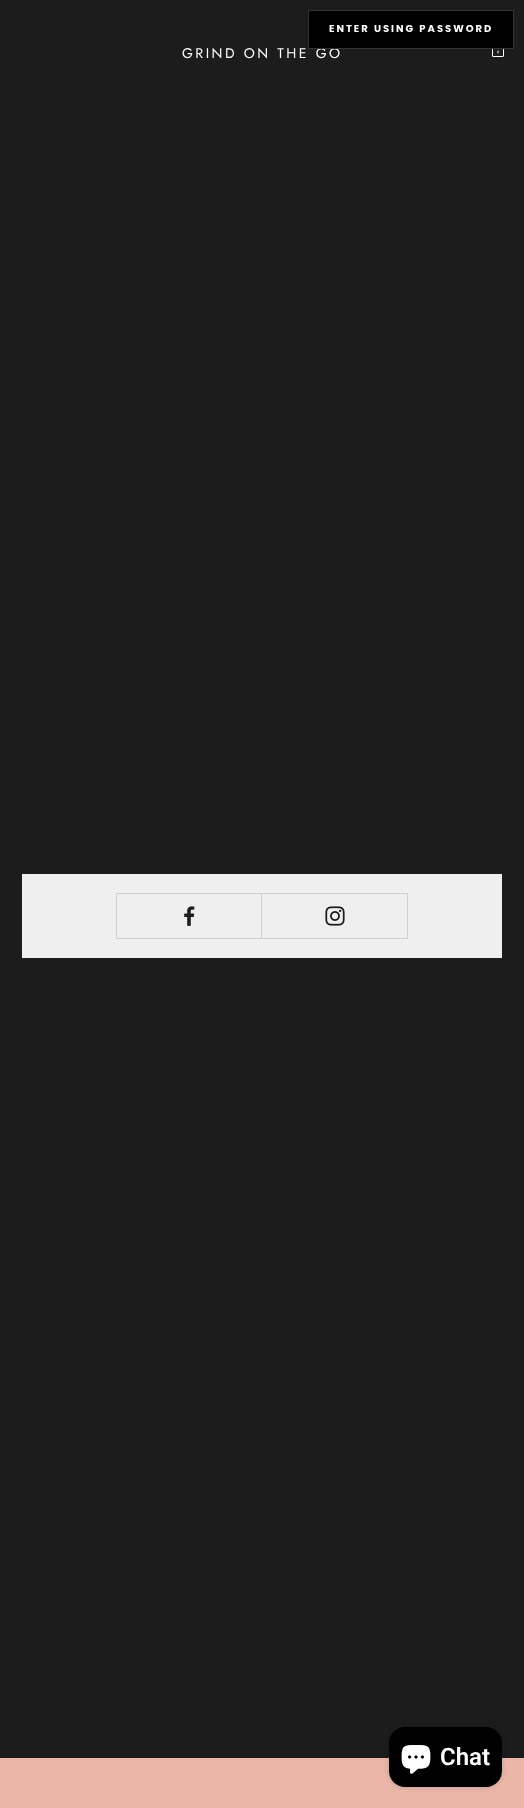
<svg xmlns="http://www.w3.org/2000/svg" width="524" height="1808">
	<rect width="100%" height="100%" fill="#1C1C1C" />
	<text x="182" y="58" font-family="Jost" font-size="14" letter-spacing="2.5" fill="#FFFFFF">GRIND ON THE GO</text>
	<rect x="308.5" y="10.5" width="205" height="38" fill="#000000" stroke="#333333" />
	<text x="329" y="32" font-family="Poppins" font-size="10" font-weight="700" letter-spacing="2" fill="#FFFFFF">ENTER USING PASSWORD</text>
	<rect x="0" y="1758" width="524" height="50" fill="#E9B6A7" />
	<image x="492" y="49" width="12" height="8" href="assets/img1.png" />
	<rect x="22" y="874" width="480" height="84" fill="#EFEFEF" />
	<rect x="116.5" y="893.5" width="145" height="45" fill="none" stroke="#CFCFCF" />
	<image x="184" y="906" width="11" height="20" href="assets/img2.png" />
	<rect x="261.5" y="893.5" width="146" height="45" fill="none" stroke="#CFCFCF" />
	<image x="325" y="906" width="20" height="20" href="assets/img3.png" />
	<rect x="389" y="1727" width="113" height="60" rx="16" fill="#000000" fill-opacity="0.15" filter="blur(2.5px)" />
	<rect x="389" y="1727" width="113" height="60" rx="16" fill="#000000" />
	<image x="401" y="1745" width="30" height="29" href="assets/img4.png" />
	<text x="440" y="1765" font-family="Roboto" font-size="24" font-weight="600" fill="#FFFFFF">Chat</text>
</svg>
